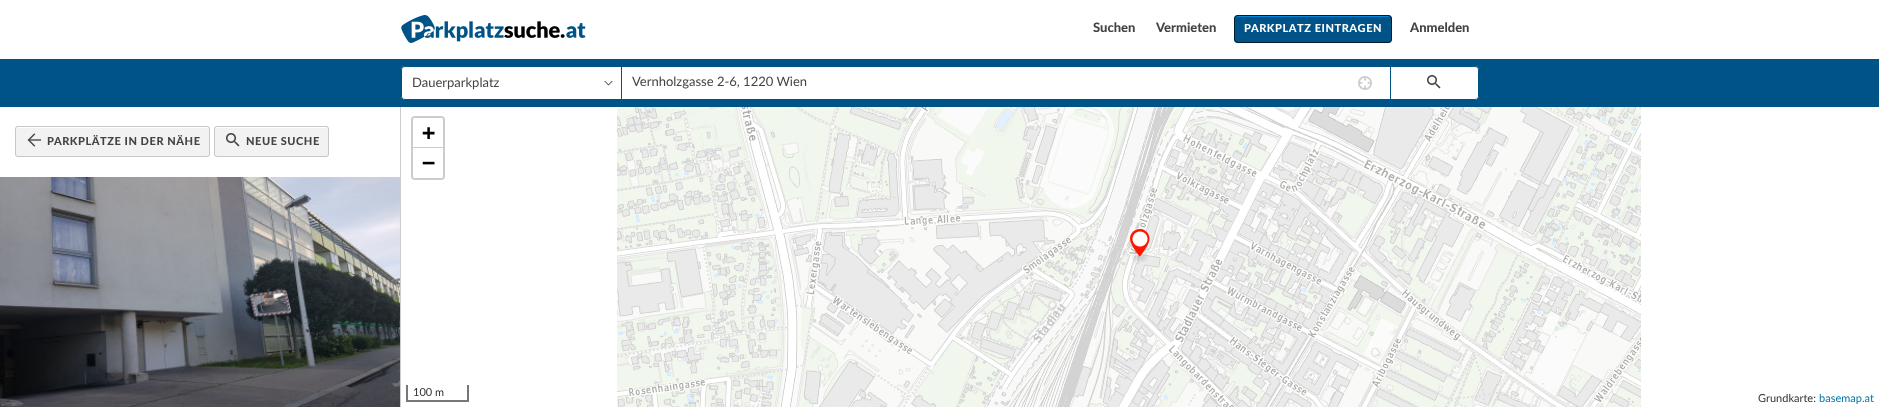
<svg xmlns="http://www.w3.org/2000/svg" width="1879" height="407">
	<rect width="100%" height="100%" fill="#FFFFFF" />
	<image x="401" y="15" width="185" height="28" href="assets/img1.png" />
	<g font-family="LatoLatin" font-size="13" font-weight="900" fill="#444444">
		<text x="1093" y="32">Suchen</text>
		<text x="1156" y="32">Vermieten</text>
	</g>
	<rect x="1234" y="15" width="158" height="28" rx="4" fill="#005387" />
	<path d="M1238 17H1388C1390 17 1391 18 1391 20C1391 18 1390 16 1388 16H1237C1235 16 1235 18 1235 20C1235 18 1236 17 1238 17Z" fill="#0088DE" />
	<rect x="1234.5" y="15.5" width="157" height="27" rx="3.5" fill="none" stroke="#001E30" />
	<text x="1244" y="32" font-family="LatoLatin" font-size="11" font-weight="900" letter-spacing="0.55" fill="#FFFFFF">PARKPLATZ EINTRAGEN</text>
	<text x="1410" y="32" font-family="LatoLatin" font-size="13" font-weight="900" fill="#444444">Anmelden</text>
	<rect x="400" y="106" width="1" height="301" fill="#CCCCCC" />
	<rect x="0" y="59" width="1879" height="48" fill="#005387" />
	<path d="M405 66H621V100H405C403 100 401 98 401 96V70C401 68 403 66 405 66Z" fill="#FFFFFF" />
	<path d="M405 66H621V100H405C403 100 401 98 401 96V70C401 68 403 66 405 66ZM405 67H621V99H405C403 99 402 98 402 96V70C402 68 403 67 405 67Z" fill="#005387" fill-rule="evenodd" />
	<text x="412" y="87" font-family="LatoLatin" font-size="13" fill="#444444">Dauerparkplatz</text>
	<image x="604" y="81" width="9" height="5" href="assets/img2.png" />
	<rect x="622" y="67" width="768" height="32" fill="#FFFFFF" />
	<text x="632" y="86" font-family="LatoLatin" font-size="13" fill="#444444">Vernholzgasse 2-6, 1220 Wien</text>
	<image x="1358" y="76" width="14" height="14" href="assets/img3.png" />
	<path d="M1391 66H1475C1477 66 1479 68 1479 70V96C1479 98 1477 100 1475 100H1391Z" fill="#FFFFFF" />
	<path d="M1391 66H1475C1477 66 1479 68 1479 70V96C1479 98 1477 100 1475 100H1391ZM1391 67H1475C1477 67 1478 68 1478 70V96C1478 98 1477 99 1475 99H1391Z" fill="#005387" fill-rule="evenodd" />
	<image x="1427" y="75" width="14" height="14" href="assets/img4.png" />
	<rect x="15" y="126" width="195" height="31" rx="3" fill="#F2F2F2" />
	<path d="M18 128H207L209 129V130V129C209 128 208 127 207 127H18C17 127 16 128 16 129V130C16 129 17 128 18 128Z" fill="#FFFFFF" />
	<rect x="15.5" y="126.5" width="194" height="30" rx="2.5" fill="none" stroke="#C7C7C7" />
	<image x="27" y="133" width="14" height="14" href="assets/img5.png" />
	<text x="47" y="145" font-family="LatoLatin" font-size="11" font-weight="900" letter-spacing="0.55" fill="#444444">PARKPLÄTZE IN DER NÄHE</text>
	<rect x="214" y="126" width="115" height="31" rx="3" fill="#F2F2F2" />
	<path d="M217 128H326C327 128 328 129 328 130C328 129 328 127 326 127H235C229 127 215 123 215 130C215 129 216 128 217 128Z" fill="#FFFFFF" />
	<rect x="214.5" y="126.5" width="114" height="30" rx="2.5" fill="none" stroke="#C7C7C7" />
	<image x="226" y="133" width="14" height="14" href="assets/img6.png" />
	<text x="246" y="145" font-family="LatoLatin" font-size="11" font-weight="900" letter-spacing="0.55" fill="#444444">NEUE SUCHE</text>
	<image x="0" y="177" width="400" height="230" href="assets/img7.png" />
	<image x="617" y="107" width="256" height="56" href="assets/img8.png" />
	<image x="873" y="107" width="256" height="56" href="assets/img9.png" />
	<image x="1129" y="107" width="256" height="56" href="assets/img10.png" />
	<image x="1385" y="107" width="256" height="56" href="assets/img11.png" />
	<image x="617" y="163" width="256" height="244" href="assets/img12.png" />
	<image x="873" y="163" width="256" height="244" href="assets/img13.png" />
	<image x="1129" y="163" width="256" height="244" href="assets/img14.png" />
	<image x="1385" y="163" width="256" height="244" href="assets/img15.png" />
	<image x="1131" y="253" width="17" height="9" href="assets/img17.png" />
	<image x="1130" y="229" width="20" height="28" href="assets/img16.png" />
	<rect x="412" y="117" width="32" height="62" rx="3" fill="none" stroke="#CCCCCC" stroke-width="2" />
	<path d="M415 118H441C442 118 443 119 443 120V148H413V120C413 119 414 118 415 118Z" fill="#FFFFFF" />
	<rect x="413" y="147" width="30" height="1" fill="#CCCCCC" />
	<text x="422" y="140" font-family="DejaVu Sans Mono" font-size="22" font-weight="700" fill="#000000">+</text>
	<path d="M413 148H443V176C443 177 442 178 441 178H415C414 178 413 177 413 176Z" fill="#FFFFFF" />
	<text x="422" y="170" font-family="DejaVu Sans Mono" font-size="22" font-weight="700" fill="#000000">−</text>
	<rect x="467" y="385" width="2" height="17" fill="#777777" />
	<rect x="406" y="400" width="63" height="2" fill="#777777" />
	<rect x="406" y="385" width="2" height="17" fill="#777777" />
	<g font-family="LatoLatin" font-size="11" fill="#333333">
		<text x="413" y="396">100 m</text>
		<text x="1758" y="402">Grundkarte:</text>
	</g>
	<text x="1819" y="402" font-family="LatoLatin" font-size="11" fill="#0078A8">basemap.at</text>
</svg>
